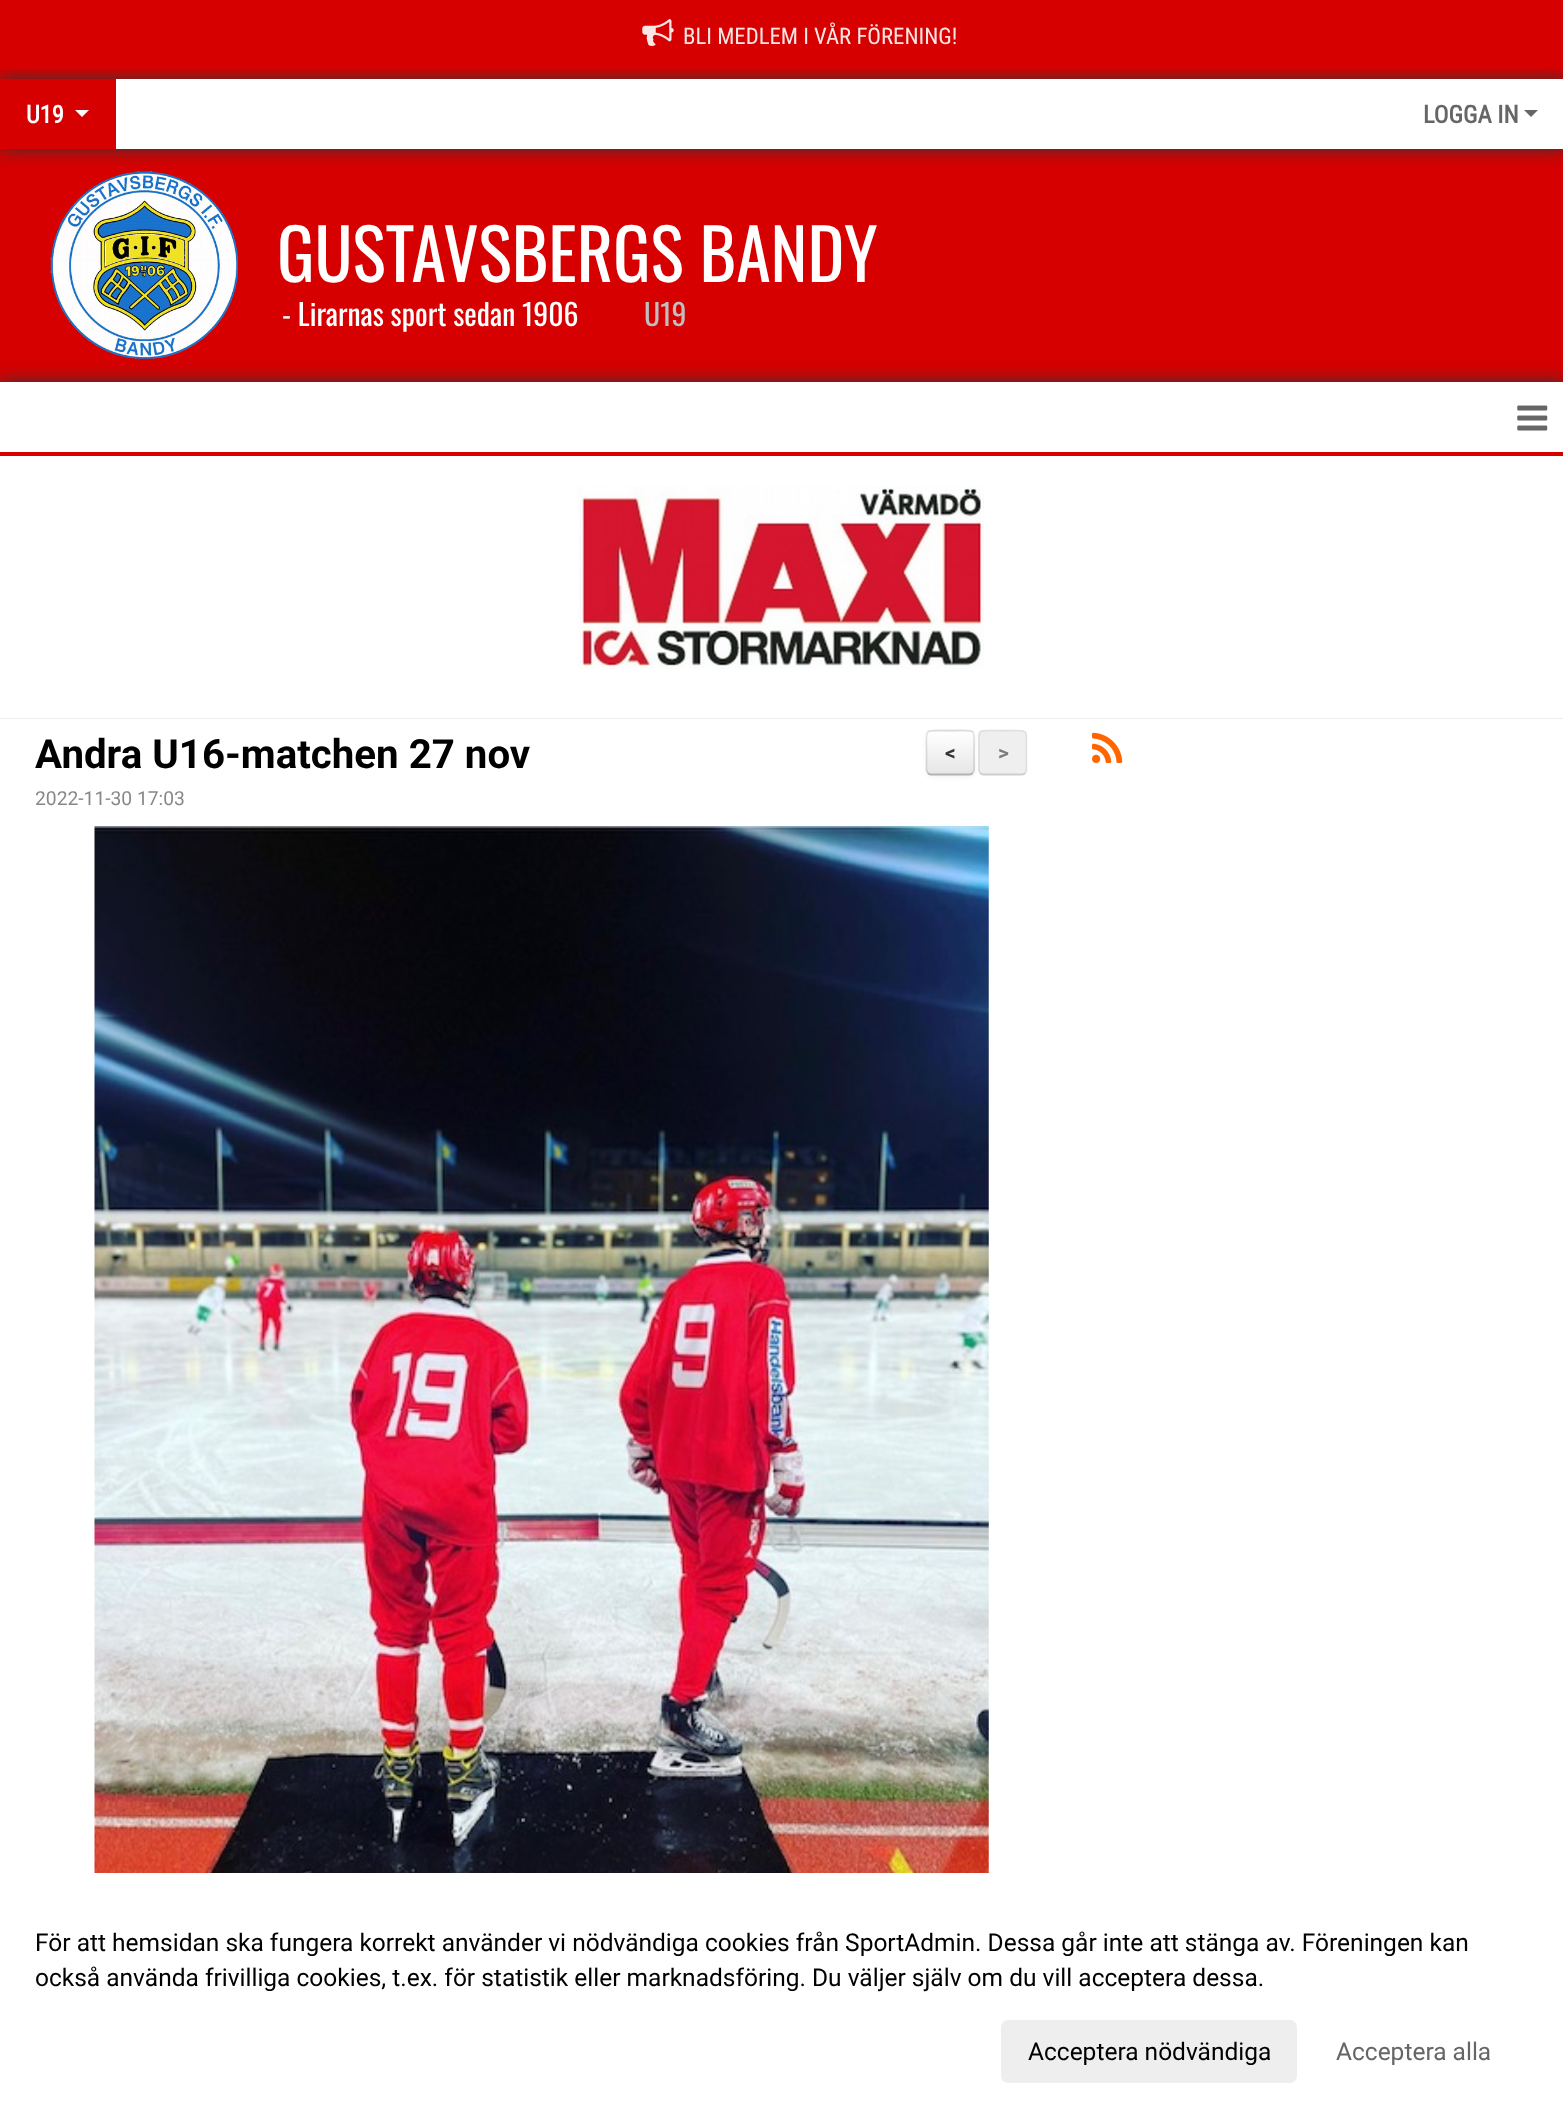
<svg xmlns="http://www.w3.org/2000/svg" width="1563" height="2116">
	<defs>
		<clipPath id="clip1"><rect x="926" y="730" width="49" height="45" rx="5" /></clipPath>
		<linearGradient id="g1" gradientUnits="userSpaceOnUse" x1="950" y1="732" x2="950" y2="774"><stop offset="0" stop-color="#FFFFFF" /><stop offset="1" stop-color="#E6E6E6" /></linearGradient>
	</defs>
	<rect width="100%" height="100%" fill="#D60000" />
	<rect x="0" y="79" width="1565" height="70" fill="#333333" filter="blur(9px)" />
	<rect x="0" y="60" width="1563" height="10" fill="#D60000" fill-opacity="0.9" />
	<image x="642" y="19" width="32" height="27" href="assets/img1.png" />
	<text x="683" y="44" font-family="Roboto Condensed" font-size="22.75" fill="#FBE6E6">BLI MEDLEM I VÅR FÖRENING!</text>
	<rect x="116" y="79" width="1447" height="70" fill="#FFFFFF" />
	<rect x="0" y="79" width="116" height="70" fill="#D60000" />
	<text x="26" y="123" font-family="Roboto Condensed" font-size="24.5" font-weight="700" fill="#FFFFFF">U19</text>
	<path d="M75 110H89L82 117Z" fill="#FFFFFF" />
	<text x="1423" y="123" font-family="Roboto Condensed" font-size="24.5" font-weight="700" fill="#666666">LOGGA IN</text>
	<path d="M1524 110H1538L1531 117Z" fill="#666666" />
	<rect x="0" y="382" width="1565" height="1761" fill="#333333" filter="blur(9px)" />
	<image x="50" y="171" width="188" height="188" href="assets/img2.png" />
	<text x="277" y="282" font-family="Oswald" font-size="70" fill="#FFFFFF">GUSTAVSBERGS BANDY</text>
	<text x="282" y="326" font-family="Oswald" font-size="29.75" fill="#FFFFFF">- Lirarnas sport sedan 1906</text>
	<text x="644" y="326" font-family="Oswald" font-size="29.75" fill="#BFBFBF">U19</text>
	<rect x="0" y="382" width="1563" height="1734" fill="#FFFFFF" />
	<rect x="0" y="452" width="1563" height="4" fill="#D60000" />
	<image x="1517" y="405" width="31" height="26" href="assets/img3.png" />
	<image x="577" y="486" width="407" height="183" href="assets/img4.png" />
	<rect x="0" y="718" width="1563" height="1" fill="#EEEEEE" />
	<text x="35" y="768" font-family="Roboto" font-size="40.25" font-weight="700" fill="#000000">Andra U16-matchen 27 nov</text>
	<text x="35" y="805" font-family="Roboto" font-size="19.25" fill="#888888">2022-11-30 17:03</text>
	<image x="94" y="826" width="895" height="1047" href="assets/img5.png" />
	<rect x="926" y="732" width="49" height="45" rx="5" fill="#000000" fill-opacity="0.05" filter="blur(2px)" />
	<rect x="926" y="730" width="49" height="45" rx="5" fill="#F5F5F5" />
	<g clip-path="url(#clip1)">
		<rect x="926" y="732" width="49" height="42" fill="url(#g1)" />
	</g>
	<path d="M972.5 773C972 774 970.5 774.5 969.5 774.5H931C930 774.5 928.5 774 928 773" fill="none" stroke="#B3B3B3" stroke-width="1.8" />
	<path d="M928 773C925.5 771 926.5 766.5 926.5 764V752.5C926.5 726 923 730.5 950 730.5C977.5 730.5 974 726 974 752.5V764C974 766.5 975 771 972.5 773" fill="none" stroke="#000000" stroke-opacity="0.1" stroke-width="1.8" />
	<text x="945" y="760" font-family="Roboto" font-size="21" font-weight="700" fill="#333333">&lt;</text>
	<rect x="978" y="730" width="49" height="45" rx="5" fill="#EFEFEF" />
	<path d="M1025 773C1024.5 774 1023 774.5 1022 774.5H983.5C982.5 774.5 981 774 980.5 773" fill="none" stroke="#CECECE" stroke-width="1.8" />
	<path d="M980.5 773C978 771 979 766.5 979 764V752.5C979 726 975.5 730.5 1003 730.5C1030 730.5 1026.5 726 1026.5 752.5V764C1026.5 766.5 1027.5 771 1025 773" fill="none" stroke="#595959" stroke-opacity="0.1" stroke-width="1.8" />
	<text x="998" y="760" font-family="Roboto" font-size="21" font-weight="700" fill="#7A7A7A">&gt;</text>
	<image x="1092" y="732" width="31" height="31" href="assets/img6.png" />
	<g font-family="Roboto" font-size="24.5" fill="#000000">
		<text x="35" y="1951">För att hemsidan ska fungera korrekt använder vi nödvändiga cookies från SportAdmin. Dessa går inte att stänga av. Föreningen kan</text>
		<text x="35" y="1986">också använda frivilliga cookies, t.ex. för statistik eller marknadsföring. Du väljer själv om du vill acceptera dessa.</text>
	</g>
	<rect x="1001" y="2020" width="296" height="63" rx="7" fill="#EEEEEE" />
	<text x="1028" y="2060" font-family="Roboto" font-size="24.5" fill="#000000">Acceptera nödvändiga</text>
	<text x="1336" y="2060" font-family="Roboto" font-size="24.5" fill="#666666">Acceptera alla</text>
</svg>
